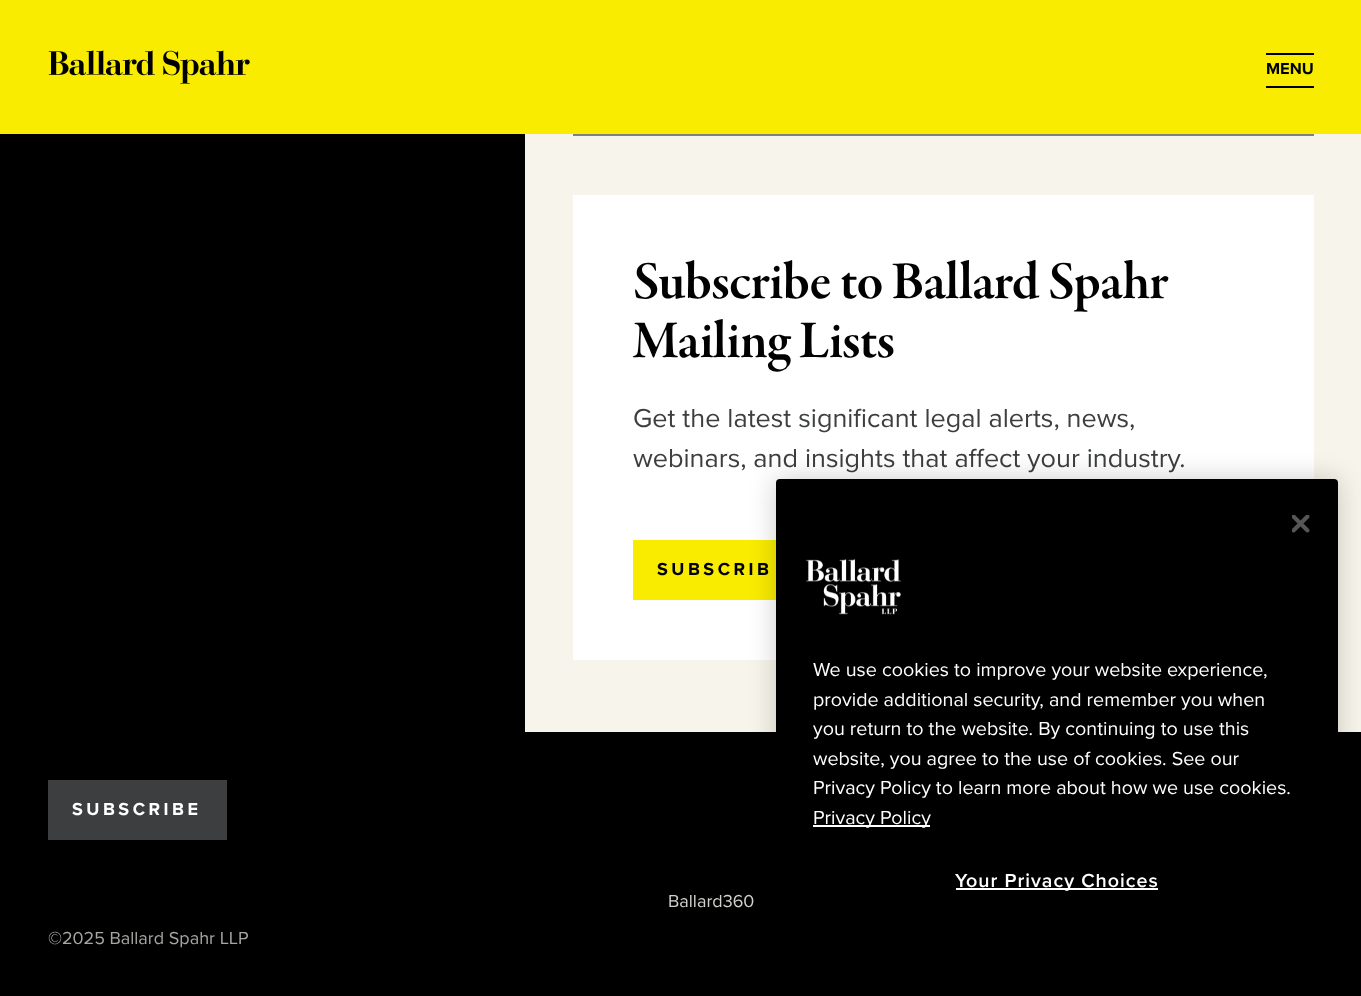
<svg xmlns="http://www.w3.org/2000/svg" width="1361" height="996">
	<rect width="100%" height="100%" fill="#000000" />
	<rect x="0" y="0" width="1361" height="134" fill="#F9EC00" />
	<image x="48" y="50" width="202" height="34" href="assets/img1.png" />
	<rect x="1266" y="53" width="48" height="2" fill="#000000" />
	<text x="1266" y="74" font-family="Proxima Nova" font-size="16.5" font-weight="700" fill="#000000">MENU</text>
	<rect x="1266" y="86" width="48" height="2" fill="#000000" />
	<rect x="525" y="134" width="836" height="598" fill="#F7F5EB" />
	<rect x="573" y="134" width="741" height="2" fill="#7E8082" />
	<rect x="573" y="195" width="741" height="465" fill="#FFFFFF" />
	<g font-family="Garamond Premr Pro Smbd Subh" font-size="54" font-weight="600" letter-spacing="-0.55" fill="#000000">
		<text x="633" y="298">Subscribe to Ballard Spahr</text>
		<text x="633" y="357">Mailing Lists</text>
	</g>
	<g font-family="Proxima Nova" font-size="27" fill="#3D3E3F">
		<text x="633" y="427">Get the latest significant legal alerts, news,</text>
		<text x="633" y="467">webinars, and insights that affect your industry.</text>
	</g>
	<rect x="633" y="540" width="143" height="60" fill="#F9EC00" />
	<text x="657" y="575" font-family="Proxima Nova" font-size="18" font-weight="700" letter-spacing="3.5" fill="#000000">SUBSCRIB</text>
	<rect x="48" y="780" width="179" height="60" fill="#3D3E3F" />
	<text x="72" y="815" font-family="Proxima Nova" font-size="18" font-weight="700" letter-spacing="3.5" fill="#FFFFFF">SUBSCRIBE</text>
	<text x="48" y="944" font-family="Proxima Nova" font-size="18" fill="#A6A7A3">©2025 Ballard Spahr LLP</text>
	<text x="668" y="907" font-family="Proxima Nova" font-size="18" fill="#D0D2CC">Ballard360</text>
	<rect x="776" y="479" width="562" height="493" rx="4" fill="#000000" fill-opacity="0.2" filter="blur(13.5px)" />
	<rect x="776" y="479" width="562" height="493" rx="4" fill="#000000" />
	<image x="1292" y="515" width="18" height="18" href="assets/img2.png" />
	<image x="806" y="559" width="95" height="56" href="assets/img3.png" />
	<g font-family="Proxima Nova" font-size="19.7" fill="#FFFFFF">
		<text x="813" y="676">We use cookies to improve your website experience,</text>
		<text x="813" y="706">provide additional security, and remember you when</text>
		<text x="813" y="735">you return to the website. By continuing to use this</text>
		<text x="813" y="765">website, you agree to the use of cookies. See our</text>
		<text x="813" y="794">Privacy Policy to learn more about how we use cookies.</text>
	</g>
	<rect x="813" y="825" width="117" height="2" fill="#FFFFFF" />
	<text x="813" y="824" font-family="Proxima Nova" font-size="19.7" fill="#FFFFFF">Privacy Policy</text>
	<rect x="956" y="888" width="202" height="2" fill="#FFFFFF" />
	<text x="955" y="887" font-family="Proxima Nova" font-size="19.7" font-weight="600" letter-spacing="1" fill="#FFFFFF">Your Privacy Choices</text>
</svg>
